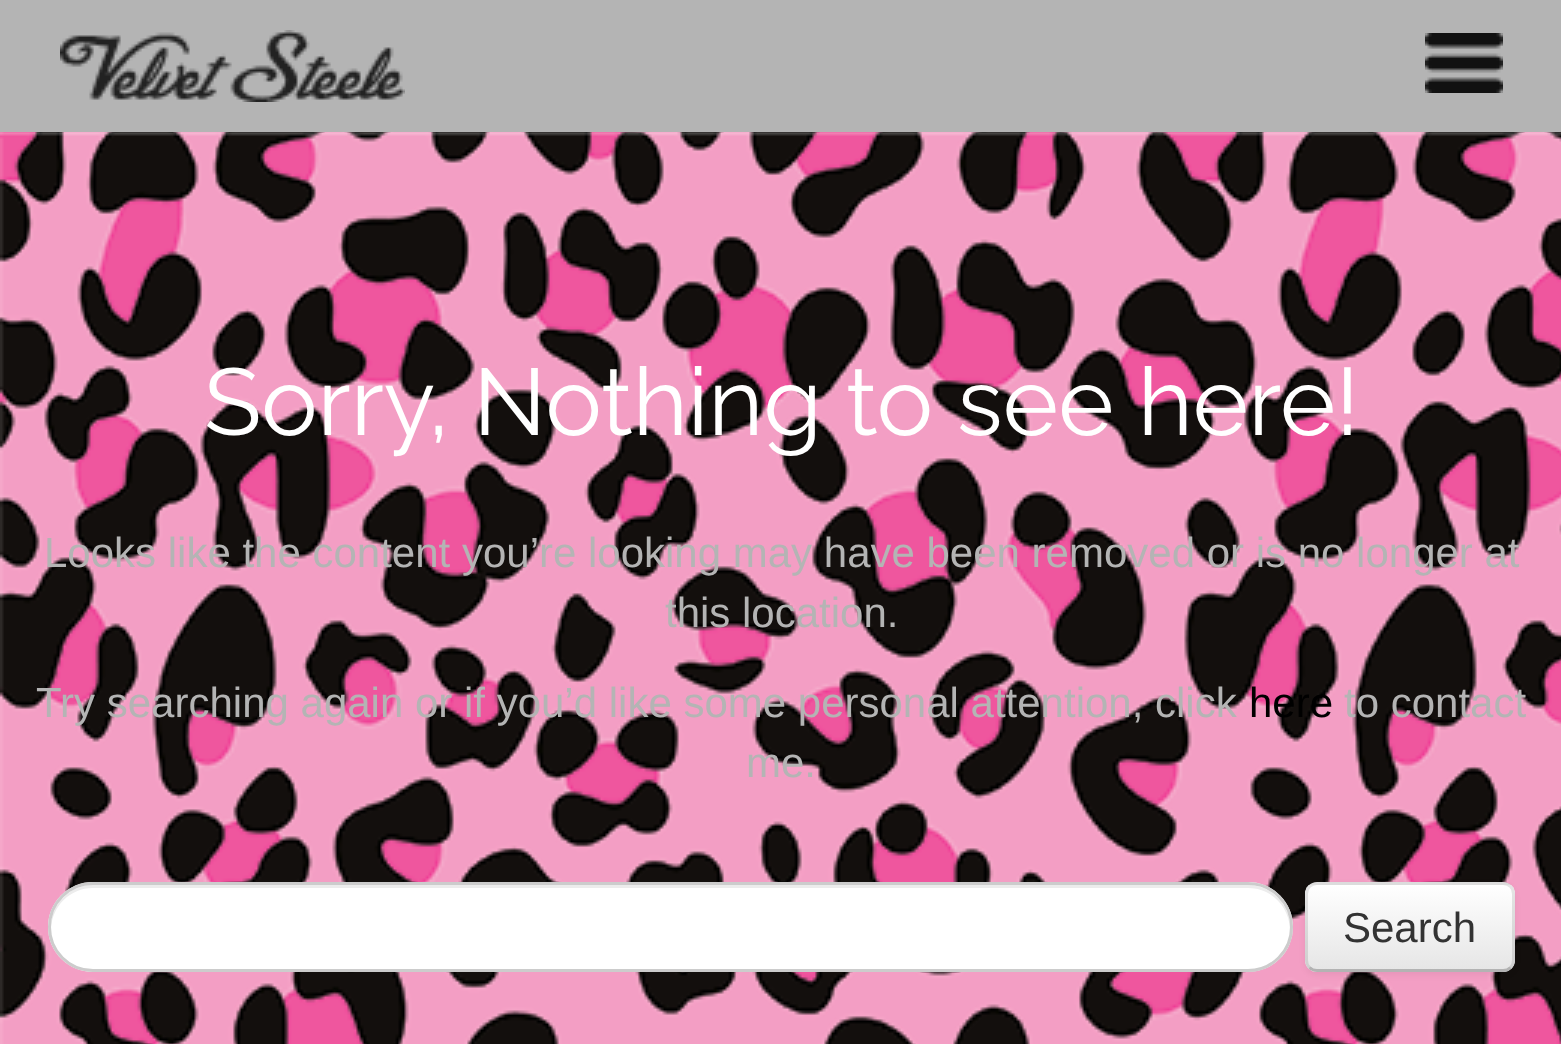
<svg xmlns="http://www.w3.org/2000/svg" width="1561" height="1044">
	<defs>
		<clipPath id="clip1"><rect x="1305" y="882" width="210" height="90" rx="12" /></clipPath>
		<linearGradient id="g1" gradientUnits="userSpaceOnUse" x1="1410" y1="885" x2="1410" y2="969"><stop offset="0" stop-color="#FFFFFF" /><stop offset="1" stop-color="#E6E6E6" /></linearGradient>
	</defs>
	<rect width="100%" height="100%" fill="#FFFFFF" />
	<rect x="0" y="0" width="1561" height="132" fill="#B4B4B4" />
	<image x="60" y="30" width="345" height="72" href="assets/img1.png" />
	<image x="1425" y="33" width="78" height="60" href="assets/img2.png" />
	<image x="0" y="132" width="1561" height="912" href="assets/img3.png" />
	<text x="204" y="435" font-family="Raleway" font-size="94.5" fill="#FFFFFF">Sorry, Nothing to see here!</text>
	<g font-family="Liberation Sans" font-size="42" fill="#B4B4B4">
		<text x="44" y="567">Looks like the content you’re looking may have been removed or is no longer at</text>
		<text x="665" y="627">this location.</text>
		<text x="36" y="717">Try searching again or if you’d like some personal attention, click</text>
	</g>
	<text x="1249" y="717" font-family="Liberation Sans" font-size="42" fill="#000000">here</text>
	<g font-family="Liberation Sans" font-size="42" fill="#B4B4B4">
		<text x="1344" y="717">to contact</text>
		<text x="746" y="777">me.</text>
	</g>
	<rect x="48" y="882" width="1245" height="90" rx="45" fill="#FFFFFF" />
	<path d="M93 888H1248C1271 888 1289 906 1290 929V927C1290 904 1271 885 1248 885H93C70 885 51 904 51 927V929C52 906 70 888 93 888Z" fill="#ECECEC" />
	<rect x="49.5" y="883.5" width="1242" height="87" rx="43.5" fill="none" stroke="#CCCCCC" stroke-width="3" />
	<rect x="1305" y="885" width="210" height="90" rx="12" fill="#000000" fill-opacity="0.05" filter="blur(3px)" />
	<rect x="1305" y="882" width="210" height="90" rx="12" fill="#F5F5F5" />
	<g clip-path="url(#clip1)">
		<rect x="1305" y="885" width="210" height="84" fill="url(#g1)" />
	</g>
	<path d="M1510.5 967.5C1508.5 969.5 1506 970.5 1503 970.5H1317C1314 970.5 1311.5 969.5 1309.5 967.5" fill="none" stroke="#B3B3B3" stroke-width="3" />
	<path d="M1309.5 967.5C1307.5 965.5 1306.5 963 1306.5 960V894C1306.5 891 1307.5 888.5 1309.5 886.5C1311.5 884.5 1314 883.5 1317 883.5H1503C1506 883.5 1508.5 884.5 1510.5 886.5C1512.5 888.5 1513.5 891 1513.5 894V960C1513.5 963 1512.5 965.5 1510.5 967.5" fill="none" stroke="#000000" stroke-opacity="0.1" stroke-width="3" />
	<text x="1343" y="942" font-family="Liberation Sans" font-size="42" fill="#333333">Search</text>
</svg>
